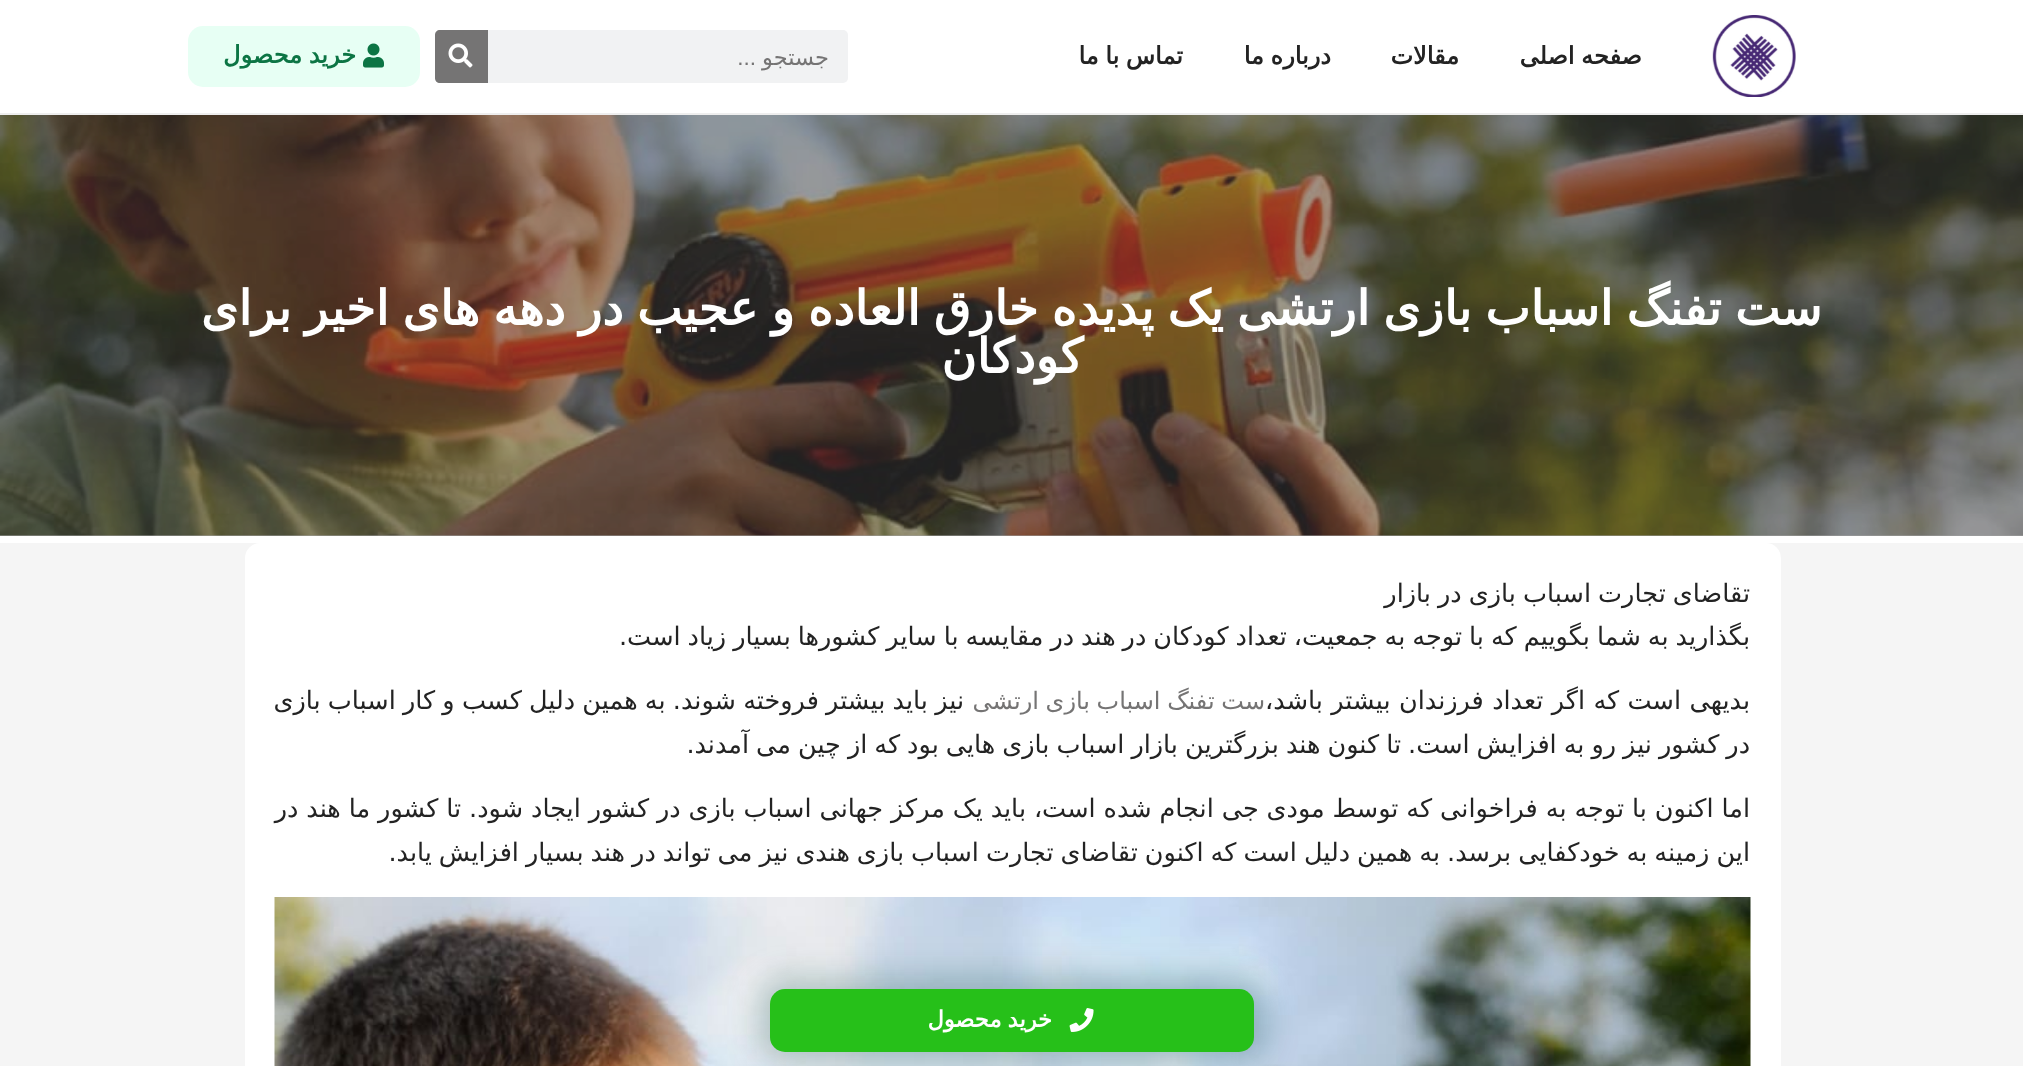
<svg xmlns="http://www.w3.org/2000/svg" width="2023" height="1066">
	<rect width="100%" height="100%" fill="#FFFFFF" />
	<rect x="0" y="535" width="2023" height="1" fill="#A0A0A0" />
	<rect x="0" y="113" width="2023" height="2" fill="#EEEEEE" />
	<image x="1712" y="15" width="84" height="82" href="assets/img1.png" />
	<g font-family="DejaVu Sans" font-size="24" font-weight="700" direction="rtl" fill="#232323">
		<text x="1642" y="64" word-spacing="-1">صفحه اصلی</text>
		<text x="1459" y="64">مقالات</text>
		<text x="1331" y="64" word-spacing="-1">درباره ما</text>
		<text x="1183" y="64" word-spacing="-1">تماس با ما</text>
	</g>
	<rect x="435" y="30" width="413" height="53" rx="5" fill="#F1F2F3" />
	<text x="829" y="65" font-family="DejaVu Sans" font-size="22.5" direction="rtl" fill="#757474">جستجو</text>
	<text x="756" y="65" font-family="Liberation Sans" font-size="22.5" direction="rtl" fill="#757474">...</text>
	<path d="M440 30H488V83H440C437 83 435 81 435 78V35C435 32 437 30 440 30Z" fill="#757474" />
	<image x="448" y="43" width="25" height="25" href="assets/img2.png" />
	<rect x="188" y="26" width="232" height="61" rx="15" fill="#E7FFF4" />
	<image x="363" y="43" width="21" height="25" href="assets/img3.png" />
	<text x="356" y="63" word-spacing="-1" font-family="DejaVu Sans" font-size="24" font-weight="700" direction="rtl" fill="#0C7544">خرید محصول</text>
	<image x="0" y="115" width="2023" height="421" href="assets/img4.png" />
	<g font-family="DejaVu Sans" font-size="48" font-weight="700" direction="rtl" fill="#FFFFFF">
		<text x="1822" y="325" word-spacing="-1.9">ست تفنگ اسباب بازی ارتشی یک پدیده خارق العاده و عجیب در دهه های اخیر برای</text>
		<text x="1083" y="373">کودکان</text>
	</g>
	<rect x="0" y="543" width="2023" height="523" fill="#F5F5F5" />
	<rect x="245" y="543" width="1536" height="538" rx="15" fill="#FFFFFF" />
	<g font-family="DejaVu Sans" font-size="25.5" direction="rtl" fill="#232323">
		<text x="1750" y="602" word-spacing="-1">تقاضای تجارت اسباب بازی در بازار</text>
		<text x="1750" y="645" word-spacing="-1.1">بگذارید به شما بگوییم که با توجه به جمعیت، تعداد کودکان در هند در مقایسه با سایر کشورها بسیار زیاد است.</text>
		<text x="1750" y="709" word-spacing="0.25">بدیهی است که اگر تعداد فرزندان بیشتر باشد،</text>
	</g>
	<text x="1265" y="709" word-spacing="-1" font-family="DejaVu Sans" font-size="24" direction="rtl" fill="#757474">ست تفنگ اسباب بازی ارتشی</text>
	<g font-family="DejaVu Sans" font-size="25.5" direction="rtl" fill="#232323">
		<text x="964" y="709" word-spacing="-0.9">نیز باید بیشتر فروخته شوند. به همین دلیل کسب و کار اسباب بازی</text>
		<text x="1750" y="753" word-spacing="-1.1">در کشور نیز رو به افزایش است. تا کنون هند بزرگترین بازار اسباب بازی هایی بود که از چین می آمدند.</text>
		<text x="1750" y="817" word-spacing="-0.2">اما اکنون با توجه به فراخوانی که توسط مودی جی انجام شده است، باید یک مرکز جهانی اسباب بازی در کشور ایجاد شود. تا کشور ما هند در</text>
		<text x="1750" y="861" word-spacing="-1.1">این زمینه به خودکفایی برسد. به همین دلیل است که اکنون تقاضای تجارت اسباب بازی هندی نیز می تواند در هند بسیار افزایش یابد.</text>
	</g>
	<image x="274" y="897" width="1477" height="169" href="assets/img5.png" />
	<rect x="759" y="978" width="506" height="84" rx="26" fill="#044B4D" fill-opacity="0.29" filter="blur(16px)" />
	<rect x="770" y="989" width="484" height="63" rx="15" fill="#26C019" />
	<image x="1069" y="1008" width="25" height="24" href="assets/img6.png" />
	<text x="1052" y="1027" word-spacing="-1" font-family="DejaVu Sans" font-size="22.5" font-weight="700" direction="rtl" fill="#FFFFFF">خرید محصول</text>
</svg>
